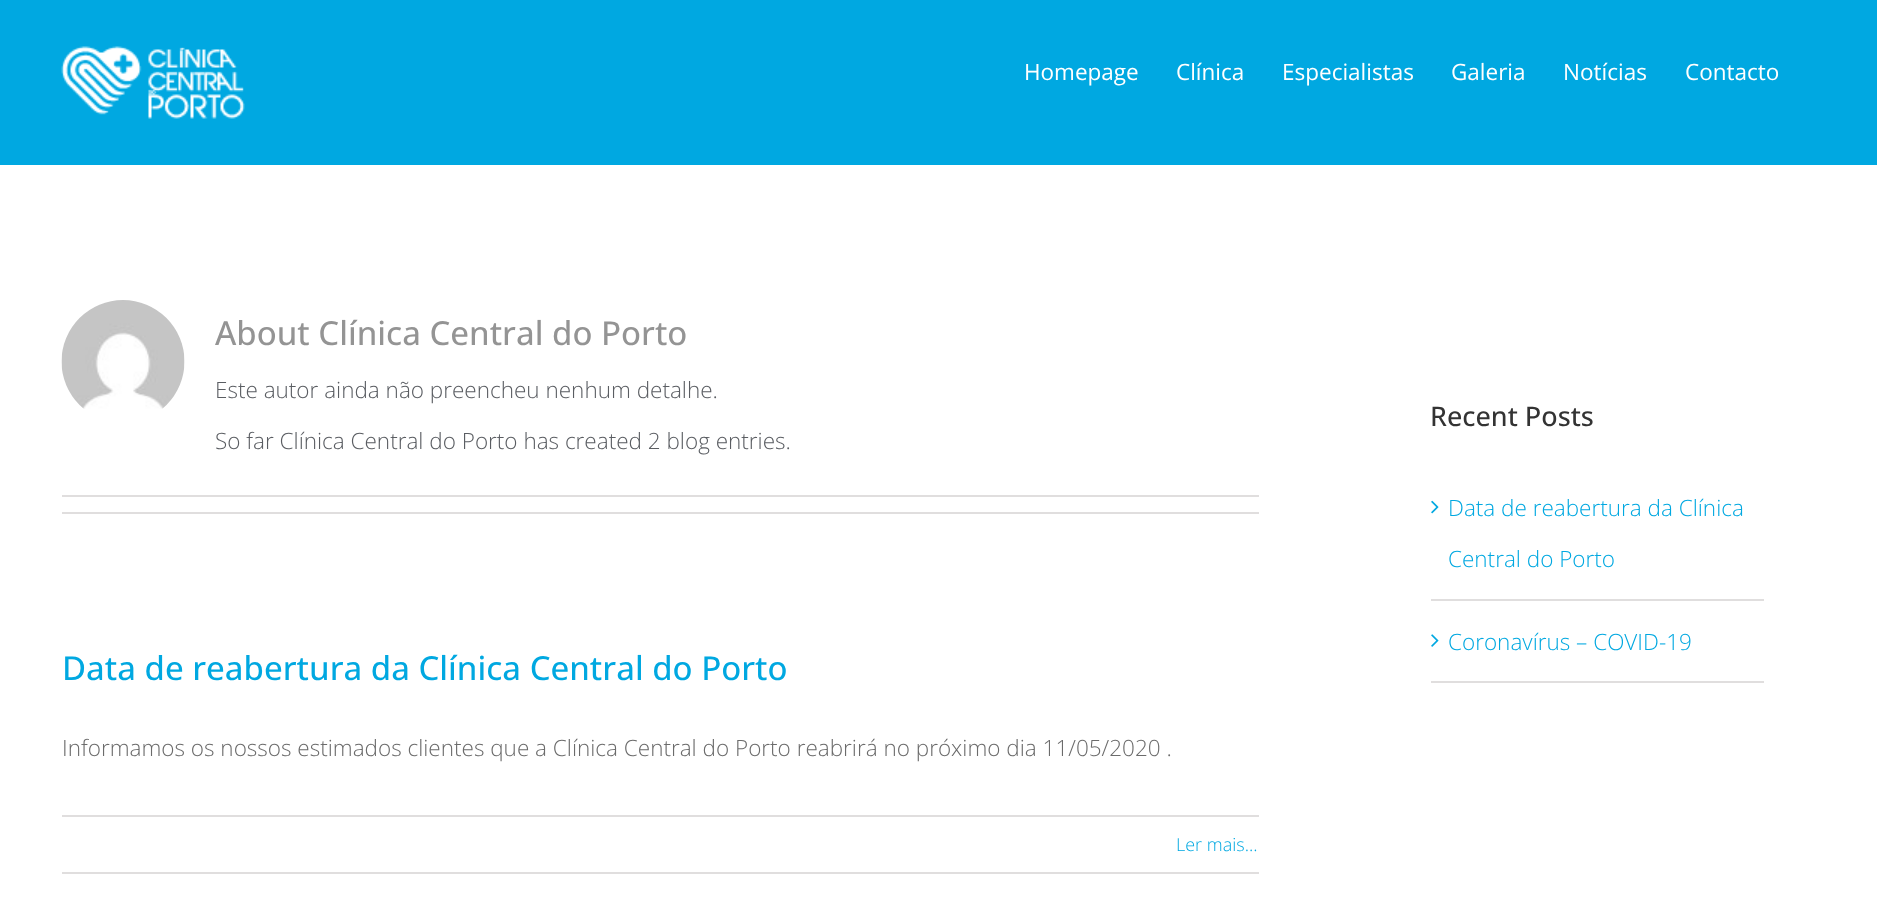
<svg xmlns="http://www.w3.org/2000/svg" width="1877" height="923">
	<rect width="100%" height="100%" fill="#FFFFFF" />
	<rect x="0" y="0" width="1877" height="165" fill="#00A8E1" />
	<image x="61" y="46" width="184" height="73" href="assets/img1.png" />
	<g font-family="Open Sans" font-size="22.5" fill="#FFFFFF">
		<text x="1024" y="80">Homepage</text>
		<text x="1176" y="80">Clínica</text>
		<text x="1282" y="80">Especialistas</text>
		<text x="1451" y="80">Galeria</text>
		<text x="1563" y="80">Notícias</text>
		<text x="1685" y="80">Contacto</text>
	</g>
	<image x="61" y="300" width="124" height="109" href="assets/img2.png" />
	<text x="215" y="345" font-family="Open Sans" font-size="33" font-weight="500" fill="#949494">About Clínica Central do Porto</text>
	<g font-family="Open Sans" font-size="22.5" font-weight="300" fill="#5A5D62">
		<text x="215" y="398">Este autor ainda não preencheu nenhum detalhe.</text>
		<text x="215" y="449">So far Clínica Central do Porto has created 2 blog entries.</text>
	</g>
	<rect x="62" y="495" width="1197" height="2" fill="#E0DEDE" />
	<rect x="62" y="512" width="1197" height="2" fill="#E0DEDE" />
	<text x="62" y="680" font-family="Open Sans" font-size="33" font-weight="500" fill="#00A8E1">Data de reabertura da Clínica Central do Porto</text>
	<text x="62" y="756" font-family="Open Sans" font-size="22.5" font-weight="300" fill="#6B6B6B">Informamos os nossos estimados clientes que a Clínica Central do Porto reabrirá no próximo dia 11/05/2020 .</text>
	<rect x="62" y="815" width="1197" height="2" fill="#E0DEDE" />
	<rect x="62" y="872" width="1197" height="2" fill="#E0DEDE" />
	<text x="1176" y="851" font-family="Open Sans" font-size="18" font-weight="300" fill="#00A8E1">Ler mais...</text>
	<text x="1430" y="426" font-family="Open Sans" font-size="27" font-weight="500" fill="#333333">Recent Posts</text>
	<rect x="1431" y="599" width="333" height="2" fill="#E0DEDE" />
	<image x="1431" y="500" width="8" height="14" href="assets/img3.png" />
	<g font-family="Open Sans" font-size="22.5" font-weight="300" fill="#00A8E1">
		<text x="1448" y="516">Data de reabertura da Clínica</text>
		<text x="1448" y="567">Central do Porto</text>
	</g>
	<rect x="1431" y="681" width="333" height="2" fill="#E0DEDE" />
	<image x="1431" y="634" width="8" height="13" href="assets/img4.png" />
	<text x="1448" y="650" font-family="Open Sans" font-size="22.5" font-weight="300" fill="#00A8E1">Coronavírus – COVID-19</text>
</svg>
